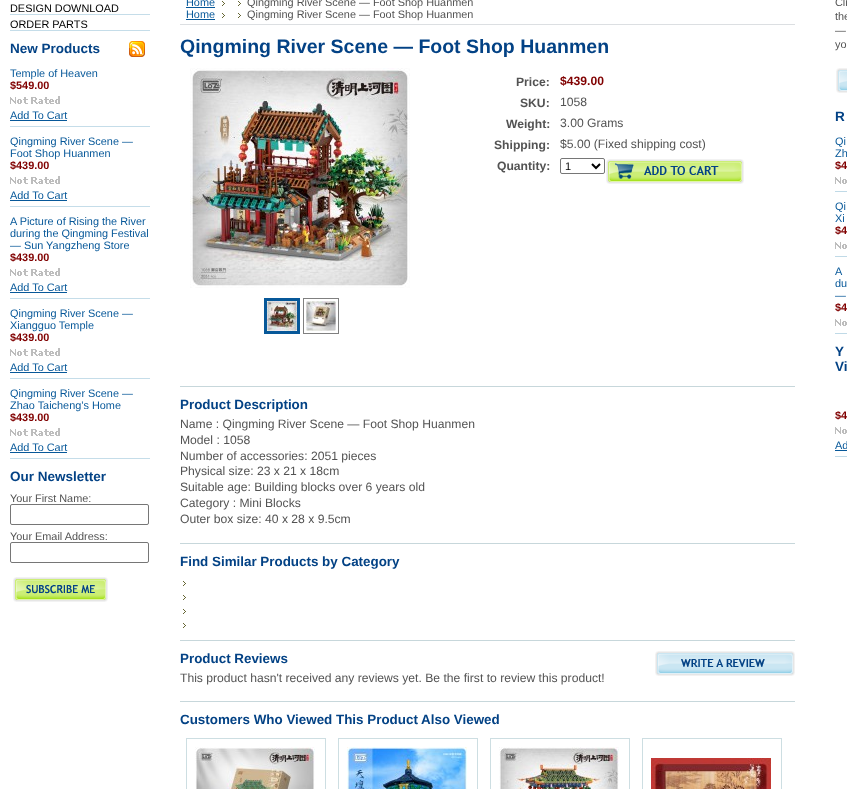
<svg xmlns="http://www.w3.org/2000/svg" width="847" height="789">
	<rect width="100%" height="100%" fill="#FFFFFF" />
	<rect x="10" y="14" width="140" height="1" fill="#C5DDE9" />
	<text x="10" y="12" font-family="Liberation Sans" font-size="10.9" fill="#000000">DESIGN DOWNLOAD</text>
	<rect x="10" y="30" width="140" height="1" fill="#C5DDE9" />
	<text x="10" y="28" font-family="Liberation Sans" font-size="10.9" fill="#000000">ORDER PARTS</text>
	<text x="10" y="53" font-family="Liberation Sans" font-size="13.5" font-weight="700" fill="#034285">New Products</text>
	<image x="129" y="41" width="16" height="16" href="assets/img1.png" />
	<rect x="10" y="126" width="140" height="1" fill="#C5DDE9" />
	<text x="10" y="77" font-family="Liberation Sans" font-size="10.9" fill="#075899">Temple of Heaven</text>
	<text x="10" y="89" font-family="Liberation Sans" font-size="10.9" font-weight="700" fill="#800000">$549.00</text>
	<image x="10" y="96" width="50" height="8" href="assets/img2.png" />
	<text x="10" y="119" font-family="Liberation Sans" font-size="10.9" fill="#075899">Add To Cart</text>
	<rect x="10" y="120" width="57" height="1" fill="#075899" />
	<rect x="10" y="206" width="140" height="1" fill="#C5DDE9" />
	<g font-family="Liberation Sans" font-size="10.9" fill="#075899">
		<text x="10" y="145">Qingming River Scene —</text>
		<text x="10" y="157">Foot Shop Huanmen</text>
	</g>
	<text x="10" y="169" font-family="Liberation Sans" font-size="10.9" font-weight="700" fill="#800000">$439.00</text>
	<image x="10" y="176" width="50" height="8" href="assets/img2.png" />
	<text x="10" y="199" font-family="Liberation Sans" font-size="10.9" fill="#075899">Add To Cart</text>
	<rect x="10" y="200" width="57" height="1" fill="#075899" />
	<rect x="10" y="298" width="140" height="1" fill="#C5DDE9" />
	<g font-family="Liberation Sans" font-size="10.9" fill="#075899">
		<text x="10" y="225">A Picture of Rising the River</text>
		<text x="10" y="237">during the Qingming Festival</text>
		<text x="10" y="249">— Sun Yangzheng Store</text>
	</g>
	<text x="10" y="261" font-family="Liberation Sans" font-size="10.9" font-weight="700" fill="#800000">$439.00</text>
	<image x="10" y="268" width="50" height="8" href="assets/img2.png" />
	<text x="10" y="291" font-family="Liberation Sans" font-size="10.9" fill="#075899">Add To Cart</text>
	<rect x="10" y="292" width="57" height="1" fill="#075899" />
	<rect x="10" y="378" width="140" height="1" fill="#C5DDE9" />
	<g font-family="Liberation Sans" font-size="10.9" fill="#075899">
		<text x="10" y="317">Qingming River Scene —</text>
		<text x="10" y="329">Xiangguo Temple</text>
	</g>
	<text x="10" y="341" font-family="Liberation Sans" font-size="10.9" font-weight="700" fill="#800000">$439.00</text>
	<image x="10" y="348" width="50" height="8" href="assets/img2.png" />
	<text x="10" y="371" font-family="Liberation Sans" font-size="10.9" fill="#075899">Add To Cart</text>
	<rect x="10" y="372" width="57" height="1" fill="#075899" />
	<rect x="10" y="458" width="140" height="1" fill="#C5DDE9" />
	<g font-family="Liberation Sans" font-size="10.9" fill="#075899">
		<text x="10" y="397">Qingming River Scene —</text>
		<text x="10" y="409">Zhao Taicheng’s Home</text>
	</g>
	<text x="10" y="421" font-family="Liberation Sans" font-size="10.9" font-weight="700" fill="#800000">$439.00</text>
	<image x="10" y="428" width="50" height="8" href="assets/img2.png" />
	<text x="10" y="451" font-family="Liberation Sans" font-size="10.9" fill="#075899">Add To Cart</text>
	<rect x="10" y="452" width="57" height="1" fill="#075899" />
	<text x="10" y="481" font-family="Liberation Sans" font-size="13.5" font-weight="700" fill="#034285">Our Newsletter</text>
	<text x="10" y="502" font-family="Liberation Sans" font-size="10.9" fill="#535353">Your First Name:</text>
	<rect x="10.5" y="504.5" width="138" height="20" rx="1.5" fill="none" stroke="#767676" />
	<text x="10" y="540" font-family="Liberation Sans" font-size="10.9" fill="#535353">Your Email Address:</text>
	<rect x="10.5" y="542.5" width="138" height="20" rx="1.5" fill="none" stroke="#767676" />
	<image x="13" y="577" width="95" height="25" href="assets/img3.png" />
	<rect x="180" y="24" width="615" height="1" fill="#DCDFE2" />
	<text x="186" y="6" font-family="Liberation Sans" font-size="10.9" fill="#075899">Home</text>
	<rect x="186" y="7" width="29" height="1" fill="#075899" />
	<image x="222" y="1" width="3" height="5" href="assets/img4.png" />
	<image x="238" y="1" width="3" height="5" href="assets/img4.png" />
	<text x="247" y="6" font-family="Liberation Sans" font-size="10.9" fill="#535353">Qingming River Scene — Foot Shop Huanmen</text>
	<text x="186" y="18" font-family="Liberation Sans" font-size="10.9" fill="#075899">Home</text>
	<rect x="186" y="19" width="29" height="1" fill="#075899" />
	<image x="222" y="13" width="3" height="5" href="assets/img4.png" />
	<image x="238" y="13" width="3" height="5" href="assets/img4.png" />
	<text x="247" y="18" font-family="Liberation Sans" font-size="10.9" fill="#535353">Qingming River Scene — Foot Shop Huanmen</text>
	<text x="180" y="53" font-family="Liberation Sans" font-size="19.5" font-weight="700" fill="#034285">Qingming River Scene — Foot Shop Huanmen</text>
	<image x="190" y="68" width="220" height="220" href="assets/img5.png" />
	<rect x="264.5" y="298.5" width="35" height="35" fill="none" stroke="#075899" />
	<rect x="266" y="300" width="32" height="32" fill="none" stroke="#075899" stroke-width="2" />
	<image x="267" y="301" width="30" height="30" href="assets/img6.png" />
	<rect x="303.5" y="298.5" width="35" height="35" fill="none" stroke="#808080" />
	<image x="306" y="301" width="30" height="30" href="assets/img7.png" />
	<text x="516" y="86" font-family="Liberation Sans" font-size="12.15" font-weight="700" fill="#535353">Price:</text>
	<text x="560" y="85" font-family="Liberation Sans" font-size="12.15" font-weight="700" fill="#800000">$439.00</text>
	<text x="520" y="107" font-family="Liberation Sans" font-size="12.15" font-weight="700" fill="#535353">SKU:</text>
	<text x="560" y="106" font-family="Liberation Sans" font-size="12.15" fill="#535353">1058</text>
	<text x="506" y="128" font-family="Liberation Sans" font-size="12.15" font-weight="700" fill="#535353">Weight:</text>
	<text x="560" y="127" font-family="Liberation Sans" font-size="12.15" fill="#535353">3.00 Grams</text>
	<text x="494" y="149" font-family="Liberation Sans" font-size="12.15" font-weight="700" fill="#535353">Shipping:</text>
	<text x="560" y="148" font-family="Liberation Sans" font-size="12.15" fill="#535353">$5.00 (Fixed shipping cost)</text>
	<text x="497" y="170" font-family="Liberation Sans" font-size="12.15" font-weight="700" fill="#535353">Quantity:</text>
	<rect x="560.5" y="158.5" width="44" height="15" rx="1.5" fill="none" stroke="#767676" />
	<path d="M592 164L596 168L600 164" fill="none" stroke="#000000" stroke-width="2" />
	<text x="565" y="170" font-family="Liberation Sans" font-size="11" fill="#000000">1</text>
	<image x="606" y="159" width="138" height="25" href="assets/img8.png" />
	<rect x="180" y="386" width="615" height="1" fill="#C7D7DB" />
	<text x="180" y="409" font-family="Liberation Sans" font-size="13.4" font-weight="700" fill="#034285">Product Description</text>
	<g font-family="Liberation Sans" font-size="12.15" fill="#535353">
		<text x="180" y="428">Name : Qingming River Scene — Foot Shop Huanmen</text>
		<text x="180" y="444">Model : 1058</text>
		<text x="180" y="460">Number of accessories: 2051 pieces</text>
		<text x="180" y="475">Physical size: 23 x 21 x 18cm</text>
		<text x="180" y="491">Suitable age: Building blocks over 6 years old</text>
		<text x="180" y="507">Category : Mini Blocks</text>
		<text x="180" y="523">Outer box size: 40 x 28 x 9.5cm</text>
	</g>
	<rect x="180" y="543" width="615" height="1" fill="#C7D7DB" />
	<text x="180" y="566" font-family="Liberation Sans" font-size="13.4" font-weight="700" fill="#034285">Find Similar Products by Category</text>
	<image x="183" y="581" width="3" height="5" href="assets/img4.png" />
	<image x="183" y="595" width="3" height="5" href="assets/img4.png" />
	<image x="183" y="609" width="3" height="5" href="assets/img4.png" />
	<image x="183" y="623" width="3" height="5" href="assets/img4.png" />
	<rect x="180" y="640" width="615" height="1" fill="#C7D7DB" />
	<text x="180" y="663" font-family="Liberation Sans" font-size="13.4" font-weight="700" fill="#034285">Product Reviews</text>
	<image x="655" y="651" width="140" height="25" href="assets/img9.png" />
	<text x="180" y="682" font-family="Liberation Sans" font-size="12.15" fill="#535353">This product hasn't received any reviews yet. Be the first to review this product!</text>
	<rect x="180" y="701" width="615" height="1" fill="#C7D7DB" />
	<text x="180" y="724" font-family="Liberation Sans" font-size="13.4" font-weight="700" fill="#034285">Customers Who Viewed This Product Also Viewed</text>
	<rect x="186.5" y="738.5" width="139" height="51" fill="none" stroke="#CDDEE2" />
	<image x="195" y="747" width="120" height="42" href="assets/img10.png" />
	<rect x="338.5" y="738.5" width="139" height="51" fill="none" stroke="#CDDEE2" />
	<image x="347" y="747" width="120" height="42" href="assets/img11.png" />
	<rect x="490.5" y="738.5" width="139" height="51" fill="none" stroke="#CDDEE2" />
	<image x="499" y="747" width="120" height="42" href="assets/img12.png" />
	<rect x="642.5" y="738.5" width="139" height="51" fill="none" stroke="#CDDEE2" />
	<image x="651" y="758" width="120" height="31" href="assets/img13.png" />
	<g font-family="Liberation Sans" font-size="10.9" fill="#535353">
		<text x="835" y="6">Cli</text>
		<text x="835" y="20">the</text>
		<text x="835" y="34">—</text>
		<text x="835" y="48">yo</text>
	</g>
	<image x="836" y="68" width="11" height="25" href="assets/img14.png" />
	<text x="835" y="121" font-family="Liberation Sans" font-size="13.5" font-weight="700" fill="#034285">R</text>
	<rect x="835" y="191" width="12" height="1" fill="#C0DAE7" />
	<g font-family="Liberation Sans" font-size="10.9" fill="#075899">
		<text x="835" y="145">Qi</text>
		<text x="835" y="157">Zh</text>
	</g>
	<text x="835" y="169" font-family="Liberation Sans" font-size="10.9" font-weight="700" fill="#800000">$4</text>
	<image x="835" y="177" width="12" height="7" href="assets/img15.png" />
	<rect x="835" y="256" width="12" height="1" fill="#C0DAE7" />
	<g font-family="Liberation Sans" font-size="10.9" fill="#075899">
		<text x="835" y="210">Qi</text>
		<text x="835" y="222">Xi</text>
	</g>
	<text x="835" y="234" font-family="Liberation Sans" font-size="10.9" font-weight="700" fill="#800000">$4</text>
	<image x="835" y="242" width="12" height="7" href="assets/img15.png" />
	<rect x="835" y="333" width="12" height="1" fill="#C0DAE7" />
	<g font-family="Liberation Sans" font-size="10.9" fill="#075899">
		<text x="835" y="275">A</text>
		<text x="835" y="287">du</text>
		<text x="835" y="299">—</text>
	</g>
	<text x="835" y="311" font-family="Liberation Sans" font-size="10.9" font-weight="700" fill="#800000">$4</text>
	<image x="835" y="319" width="12" height="7" href="assets/img15.png" />
	<g font-family="Liberation Sans" font-size="13.5" font-weight="700" fill="#034285">
		<text x="835" y="356">Y</text>
		<text x="835" y="371">Vi</text>
	</g>
	<rect x="835" y="456" width="12" height="1" fill="#C0DAE7" />
	<text x="835" y="419" font-family="Liberation Sans" font-size="10.9" font-weight="700" fill="#800000">$4</text>
	<image x="835" y="427" width="12" height="7" href="assets/img15.png" />
	<text x="835" y="449" font-family="Liberation Sans" font-size="10.9" fill="#075899">Ad</text>
	<rect x="835" y="450" width="12" height="1" fill="#075899" />
</svg>
